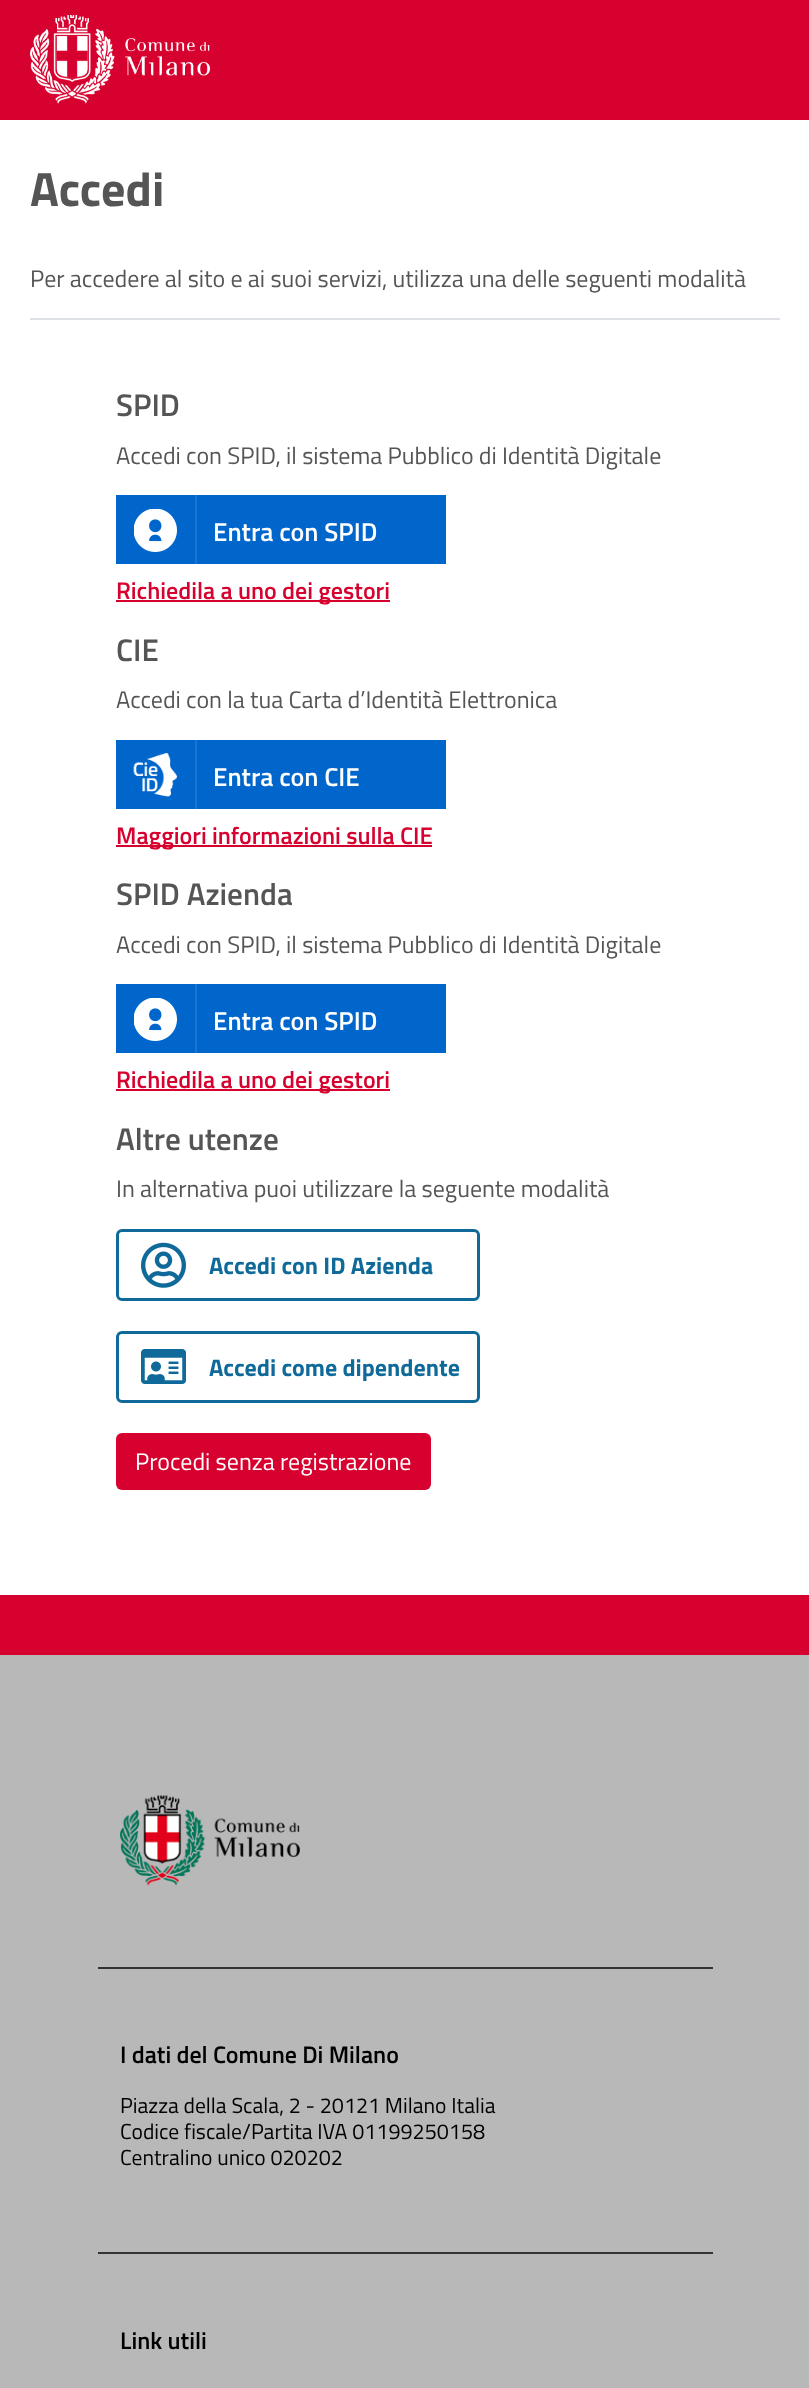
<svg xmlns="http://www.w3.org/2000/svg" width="809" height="2388">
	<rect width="100%" height="100%" fill="#FFFFFF" />
	<rect x="0" y="0" width="809" height="120" fill="#D6012E" />
	<image x="30" y="15" width="180" height="89" href="assets/img1.png" />
	<text x="30" y="206" font-family="Titillium Web" font-size="48" font-weight="700" fill="#555555">Accedi</text>
	<text x="30" y="287" font-family="Titillium Web" font-size="24" fill="#555555">Per accedere al sito e ai suoi servizi, utilizza una delle seguenti modalità</text>
	<rect x="30" y="318" width="750" height="2" fill="#DEE2E6" />
	<text x="116" y="416" font-family="Titillium Web" font-size="31.25" font-weight="600" fill="#555555">SPID</text>
	<text x="116" y="464" font-family="Titillium Web" font-size="24" fill="#555555">Accedi con SPID, il sistema Pubblico di Identità Digitale</text>
	<rect x="116" y="495" width="330" height="69" fill="#0066CC" />
	<rect x="195" y="495" width="2" height="69" fill="#1A75D1" />
	<image x="134" y="509" width="43" height="43" href="assets/img2.png" />
	<text x="213" y="541" font-family="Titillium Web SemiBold" font-size="26" font-weight="600" fill="#FFFFFF">Entra con SPID</text>
	<rect x="116" y="600" width="274" height="2" fill="#D6012E" />
	<text x="116" y="599" font-family="Titillium Web" font-size="24" font-weight="600" fill="#D6012E">Richiedila a uno dei gestori</text>
	<text x="116" y="661" font-family="Titillium Web" font-size="31.25" font-weight="600" fill="#555555">CIE</text>
	<text x="116" y="708" font-family="Titillium Web" font-size="24" fill="#555555">Accedi con la tua Carta d’Identità Elettronica</text>
	<rect x="116" y="740" width="330" height="69" fill="#0066CC" />
	<rect x="195" y="740" width="2" height="69" fill="#1A75D1" />
	<image x="133" y="753" width="44" height="44" href="assets/img3.png" />
	<text x="213" y="786" font-family="Titillium Web SemiBold" font-size="26" font-weight="600" fill="#FFFFFF">Entra con CIE</text>
	<rect x="116" y="845" width="316" height="2" fill="#D6012E" />
	<text x="116" y="844" font-family="Titillium Web" font-size="24" font-weight="600" fill="#D6012E">Maggiori informazioni sulla CIE</text>
	<text x="116" y="905" font-family="Titillium Web" font-size="31.25" font-weight="600" fill="#555555">SPID Azienda</text>
	<text x="116" y="953" font-family="Titillium Web" font-size="24" fill="#555555">Accedi con SPID, il sistema Pubblico di Identità Digitale</text>
	<rect x="116" y="984" width="330" height="69" fill="#0066CC" />
	<rect x="195" y="984" width="2" height="69" fill="#1A75D1" />
	<image x="134" y="998" width="43" height="43" href="assets/img2.png" />
	<text x="213" y="1030" font-family="Titillium Web SemiBold" font-size="26" font-weight="600" fill="#FFFFFF">Entra con SPID</text>
	<rect x="116" y="1089" width="274" height="2" fill="#D6012E" />
	<text x="116" y="1088" font-family="Titillium Web" font-size="24" font-weight="600" fill="#D6012E">Richiedila a uno dei gestori</text>
	<text x="116" y="1150" font-family="Titillium Web" font-size="31.25" font-weight="600" fill="#555555">Altre utenze</text>
	<text x="116" y="1197" font-family="Titillium Web" font-size="24" fill="#555555">In alternativa puoi utilizzare la seguente modalità</text>
	<image x="141" y="1242" width="45" height="46" href="assets/img4.png" />
	<rect x="117.5" y="1230.5" width="361" height="69" rx="4.5" fill="none" stroke="#0F6A9A" stroke-width="3" />
	<text x="209" y="1274" font-family="Titillium Web" font-size="24" font-weight="700" fill="#0F6A9A">Accedi con ID Azienda</text>
	<image x="141" y="1349" width="45" height="35" href="assets/img5.png" />
	<rect x="117.5" y="1332.5" width="361" height="69" rx="4.5" fill="none" stroke="#0F6A9A" stroke-width="3" />
	<text x="209" y="1376" font-family="Titillium Web" font-size="24" font-weight="700" fill="#0F6A9A">Accedi come dipendente</text>
	<rect x="116" y="1433" width="315" height="57" rx="6" fill="#D6012E" />
	<text x="135" y="1470" font-family="Titillium Web" font-size="24" fill="#FFFFFF">Procedi senza registrazione</text>
	<rect x="0" y="1655" width="809" height="733" fill="#B8B8B8" />
	<rect x="0" y="1595" width="809" height="60" fill="#D6012E" />
	<image x="120" y="1795" width="180" height="91" href="assets/img6.png" />
	<rect x="98" y="1967" width="615" height="2" fill="#333333" />
	<text x="120" y="2063" font-family="Titillium Web" font-size="24" font-weight="600" fill="#000000">I dati del Comune Di Milano</text>
	<g font-family="Titillium Web" font-size="21.6" fill="#000000">
		<text x="120" y="2113">Piazza della Scala, 2 - 20121 Milano Italia</text>
		<text x="120" y="2139">Codice fiscale/Partita IVA 01199250158</text>
		<text x="120" y="2165">Centralino unico 020202</text>
	</g>
	<rect x="98" y="2252" width="615" height="2" fill="#333333" />
	<text x="120" y="2349" font-family="Titillium Web" font-size="24" font-weight="600" fill="#000000">Link utili</text>
</svg>
